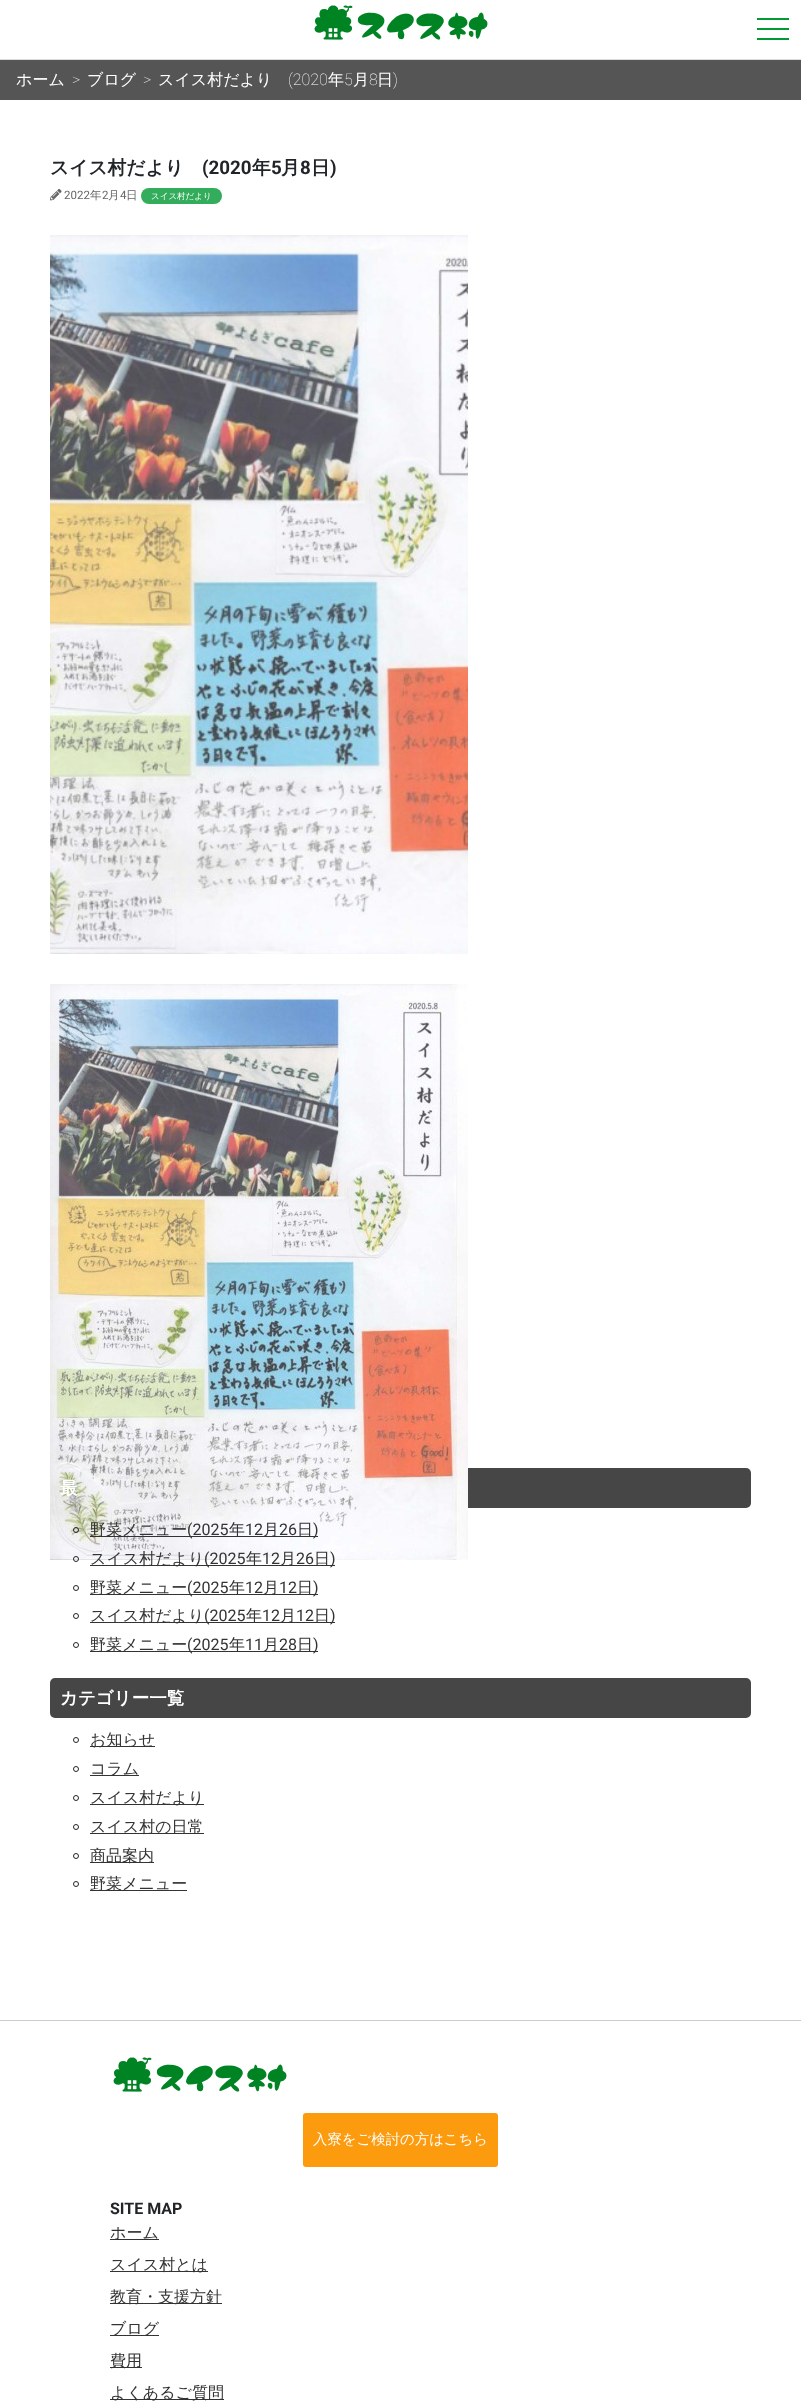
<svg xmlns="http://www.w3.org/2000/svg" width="801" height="2406">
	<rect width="100%" height="100%" fill="#FFFFFF" />
	<rect x="0" y="59" width="801" height="1" fill="#DDDDDD" />
	<image x="314" y="5" width="174" height="35" href="assets/img1.png" />
	<rect x="757" y="28" width="32" height="2" fill="#009933" />
	<rect x="757" y="18" width="32" height="2" fill="#009933" />
	<rect x="757" y="38" width="32" height="2" fill="#009933" />
	<rect x="0" y="60" width="801" height="40" fill="#555555" />
	<text x="16" y="85" font-family="WenQuanYi Zen Hei" font-size="16" font-weight="500" fill="#FFFFFF">ホーム</text>
	<text x="72" y="85" font-family="Roboto" font-size="16" font-weight="100" fill="#FFFFFF">&gt;</text>
	<text x="87" y="85" font-family="WenQuanYi Zen Hei" font-size="16" font-weight="500" fill="#FFFFFF">ブログ</text>
	<text x="143" y="85" font-family="Roboto" font-size="16" font-weight="100" fill="#FFFFFF">&gt;</text>
	<text x="158" y="85" font-family="WenQuanYi Zen Hei" font-size="16" font-weight="500" fill="#FFFFFF">スイス村だより</text>
	<text x="288" y="85" font-family="Roboto" font-size="16" font-weight="100" fill="#FFFFFF">(2020</text>
	<text x="328" y="85" font-family="WenQuanYi Zen Hei" font-size="16" font-weight="500" fill="#FFFFFF">年</text>
	<text x="344" y="85" font-family="Roboto" font-size="16" font-weight="100" fill="#FFFFFF">5</text>
	<text x="353" y="85" font-family="WenQuanYi Zen Hei" font-size="16" font-weight="500" fill="#FFFFFF">月</text>
	<text x="369" y="85" font-family="Roboto" font-size="16" font-weight="100" fill="#FFFFFF">8</text>
	<text x="377" y="85" font-family="WenQuanYi Zen Hei" font-size="16" font-weight="500" fill="#FFFFFF">日</text>
	<text x="393" y="85" font-family="Roboto" font-size="16" font-weight="100" fill="#FFFFFF">)</text>
	<text x="50" y="174" font-family="WenQuanYi Zen Hei" font-size="18.75" font-weight="700" fill="#212529">スイス村だより</text>
	<text x="202" y="174" font-family="Roboto" font-size="18.75" font-weight="700" fill="#212529">(2020</text>
	<text x="252" y="174" font-family="WenQuanYi Zen Hei" font-size="18.75" font-weight="700" fill="#212529">年</text>
	<text x="271" y="174" font-family="Roboto" font-size="18.75" font-weight="700" fill="#212529">5</text>
	<text x="281" y="174" font-family="WenQuanYi Zen Hei" font-size="18.75" font-weight="700" fill="#212529">月</text>
	<text x="300" y="174" font-family="Roboto" font-size="18.75" font-weight="700" fill="#212529">8</text>
	<text x="311" y="174" font-family="WenQuanYi Zen Hei" font-size="18.75" font-weight="700" fill="#212529">日</text>
	<text x="330" y="174" font-family="Roboto" font-size="18.75" font-weight="700" fill="#212529">)</text>
	<image x="50" y="189" width="12" height="12" href="assets/img2.png" />
	<text x="64" y="199" font-family="Roboto" font-size="11.5" fill="#666666">2022</text>
	<text x="90" y="199" font-family="WenQuanYi Zen Hei" font-size="11.5" font-weight="500" fill="#666666">年</text>
	<text x="102" y="199" font-family="Roboto" font-size="11.5" fill="#666666">2</text>
	<text x="108" y="199" font-family="WenQuanYi Zen Hei" font-size="11.5" font-weight="500" fill="#666666">月</text>
	<text x="120" y="199" font-family="Roboto" font-size="11.5" fill="#666666">4</text>
	<text x="126" y="199" font-family="WenQuanYi Zen Hei" font-size="11.5" font-weight="500" fill="#666666">日</text>
	<rect x="141" y="188" width="81" height="16" rx="8" fill="#33AD5C" />
	<text x="151" y="199" font-family="WenQuanYi Zen Hei" font-size="8.5" font-weight="500" fill="#FFFFFF">スイス村だより</text>
	<image x="50" y="235" width="418" height="719" href="assets/img3.png" />
	<rect x="50" y="1468" width="701" height="40" rx="5" fill="#464646" />
	<image x="50" y="984" width="418" height="576" href="assets/img4.png" />
	<text x="60" y="1494" font-family="WenQuanYi Zen Hei" font-size="17.5" font-weight="700" fill="#FFFFFF">最</text>
	<circle cx="76" cy="1530" r="2.5" fill="none" stroke="#212529" />
	<rect x="90" y="1536" width="228" height="1" fill="#333333" />
	<text x="90" y="1535" font-family="WenQuanYi Zen Hei" font-size="16" font-weight="500" fill="#333333">野菜メニュー</text>
	<text x="187" y="1535" font-family="Roboto" font-size="16" fill="#333333">(2025</text>
	<text x="229" y="1535" font-family="WenQuanYi Zen Hei" font-size="16" font-weight="500" fill="#333333">年</text>
	<text x="245" y="1535" font-family="Roboto" font-size="16" fill="#333333">12</text>
	<text x="263" y="1535" font-family="WenQuanYi Zen Hei" font-size="16" font-weight="500" fill="#333333">月</text>
	<text x="279" y="1535" font-family="Roboto" font-size="16" fill="#333333">26</text>
	<text x="297" y="1535" font-family="WenQuanYi Zen Hei" font-size="16" font-weight="500" fill="#333333">日</text>
	<text x="313" y="1535" font-family="Roboto" font-size="16" fill="#333333">)</text>
	<circle cx="76" cy="1559" r="2.5" fill="none" stroke="#212529" />
	<rect x="90" y="1565" width="245" height="1" fill="#333333" />
	<text x="90" y="1564" font-family="WenQuanYi Zen Hei" font-size="16" font-weight="500" fill="#333333">スイス村だより</text>
	<text x="204" y="1564" font-family="Roboto" font-size="16" fill="#333333">(2025</text>
	<text x="246" y="1564" font-family="WenQuanYi Zen Hei" font-size="16" font-weight="500" fill="#333333">年</text>
	<text x="262" y="1564" font-family="Roboto" font-size="16" fill="#333333">12</text>
	<text x="280" y="1564" font-family="WenQuanYi Zen Hei" font-size="16" font-weight="500" fill="#333333">月</text>
	<text x="296" y="1564" font-family="Roboto" font-size="16" fill="#333333">26</text>
	<text x="314" y="1564" font-family="WenQuanYi Zen Hei" font-size="16" font-weight="500" fill="#333333">日</text>
	<text x="330" y="1564" font-family="Roboto" font-size="16" fill="#333333">)</text>
	<circle cx="76" cy="1588" r="2.5" fill="none" stroke="#212529" />
	<rect x="90" y="1594" width="228" height="1" fill="#333333" />
	<text x="90" y="1593" font-family="WenQuanYi Zen Hei" font-size="16" font-weight="500" fill="#333333">野菜メニュー</text>
	<text x="187" y="1593" font-family="Roboto" font-size="16" fill="#333333">(2025</text>
	<text x="229" y="1593" font-family="WenQuanYi Zen Hei" font-size="16" font-weight="500" fill="#333333">年</text>
	<text x="245" y="1593" font-family="Roboto" font-size="16" fill="#333333">12</text>
	<text x="263" y="1593" font-family="WenQuanYi Zen Hei" font-size="16" font-weight="500" fill="#333333">月</text>
	<text x="279" y="1593" font-family="Roboto" font-size="16" fill="#333333">12</text>
	<text x="297" y="1593" font-family="WenQuanYi Zen Hei" font-size="16" font-weight="500" fill="#333333">日</text>
	<text x="313" y="1593" font-family="Roboto" font-size="16" fill="#333333">)</text>
	<circle cx="76" cy="1616" r="2.5" fill="none" stroke="#212529" />
	<rect x="90" y="1622" width="245" height="1" fill="#333333" />
	<text x="90" y="1621" font-family="WenQuanYi Zen Hei" font-size="16" font-weight="500" fill="#333333">スイス村だより</text>
	<text x="204" y="1621" font-family="Roboto" font-size="16" fill="#333333">(2025</text>
	<text x="246" y="1621" font-family="WenQuanYi Zen Hei" font-size="16" font-weight="500" fill="#333333">年</text>
	<text x="262" y="1621" font-family="Roboto" font-size="16" fill="#333333">12</text>
	<text x="280" y="1621" font-family="WenQuanYi Zen Hei" font-size="16" font-weight="500" fill="#333333">月</text>
	<text x="296" y="1621" font-family="Roboto" font-size="16" fill="#333333">12</text>
	<text x="314" y="1621" font-family="WenQuanYi Zen Hei" font-size="16" font-weight="500" fill="#333333">日</text>
	<text x="330" y="1621" font-family="Roboto" font-size="16" fill="#333333">)</text>
	<circle cx="76" cy="1645" r="2.5" fill="none" stroke="#212529" />
	<rect x="90" y="1651" width="228" height="1" fill="#333333" />
	<text x="90" y="1650" font-family="WenQuanYi Zen Hei" font-size="16" font-weight="500" fill="#333333">野菜メニュー</text>
	<text x="187" y="1650" font-family="Roboto" font-size="16" fill="#333333">(2025</text>
	<text x="229" y="1650" font-family="WenQuanYi Zen Hei" font-size="16" font-weight="500" fill="#333333">年</text>
	<text x="245" y="1650" font-family="Roboto" font-size="16" fill="#333333">11</text>
	<text x="263" y="1650" font-family="WenQuanYi Zen Hei" font-size="16" font-weight="500" fill="#333333">月</text>
	<text x="279" y="1650" font-family="Roboto" font-size="16" fill="#333333">28</text>
	<text x="297" y="1650" font-family="WenQuanYi Zen Hei" font-size="16" font-weight="500" fill="#333333">日</text>
	<text x="313" y="1650" font-family="Roboto" font-size="16" fill="#333333">)</text>
	<rect x="50" y="1678" width="701" height="40" rx="5" fill="#464646" />
	<text x="60" y="1704" font-family="WenQuanYi Zen Hei" font-size="17.5" font-weight="700" fill="#FFFFFF">カテゴリー一覧</text>
	<circle cx="76" cy="1740" r="2.5" fill="none" stroke="#212529" />
	<rect x="90" y="1746" width="65" height="1" fill="#333333" />
	<text x="90" y="1745" font-family="WenQuanYi Zen Hei" font-size="16" font-weight="500" fill="#333333">お知らせ</text>
	<circle cx="76" cy="1769" r="2.5" fill="none" stroke="#212529" />
	<rect x="90" y="1775" width="49" height="1" fill="#333333" />
	<text x="90" y="1774" font-family="WenQuanYi Zen Hei" font-size="16" font-weight="500" fill="#333333">コラム</text>
	<circle cx="76" cy="1798" r="2.5" fill="none" stroke="#212529" />
	<rect x="90" y="1804" width="114" height="1" fill="#333333" />
	<text x="90" y="1803" font-family="WenQuanYi Zen Hei" font-size="16" font-weight="500" fill="#333333">スイス村だより</text>
	<circle cx="76" cy="1827" r="2.5" fill="none" stroke="#212529" />
	<rect x="90" y="1833" width="114" height="1" fill="#333333" />
	<text x="90" y="1832" font-family="WenQuanYi Zen Hei" font-size="16" font-weight="500" fill="#333333">スイス村の日常</text>
	<circle cx="76" cy="1856" r="2.5" fill="none" stroke="#212529" />
	<rect x="90" y="1862" width="64" height="1" fill="#333333" />
	<text x="90" y="1861" font-family="WenQuanYi Zen Hei" font-size="16" font-weight="500" fill="#333333">商品案内</text>
	<circle cx="76" cy="1884" r="2.5" fill="none" stroke="#212529" />
	<rect x="90" y="1890" width="97" height="1" fill="#333333" />
	<text x="90" y="1889" font-family="WenQuanYi Zen Hei" font-size="16" font-weight="500" fill="#333333">野菜メニュー</text>
	<rect x="0" y="2020" width="801" height="1" fill="#CCCCCC" />
	<image x="113" y="2057" width="174" height="35" href="assets/img1.png" />
	<rect x="303" y="2113" width="195" height="54" rx="3" fill="#FB9B0D" />
	<text x="313" y="2144" font-family="WenQuanYi Zen Hei" font-size="14.4" font-weight="500" fill="#FFFFFF">入寮をご検討の方はこちら</text>
	<text x="110" y="2214" font-family="Roboto" font-size="16" font-weight="700" fill="#212529">SITE MAP</text>
	<rect x="110" y="2239" width="49" height="1" fill="#333333" />
	<text x="110" y="2238" font-family="WenQuanYi Zen Hei" font-size="16" font-weight="500" fill="#333333">ホーム</text>
	<rect x="110" y="2271" width="98" height="1" fill="#333333" />
	<text x="110" y="2270" font-family="WenQuanYi Zen Hei" font-size="16" font-weight="500" fill="#333333">スイス村とは</text>
	<rect x="110" y="2303" width="112" height="1" fill="#333333" />
	<text x="110" y="2302" font-family="WenQuanYi Zen Hei" font-size="16" font-weight="500" fill="#333333">教育・支援方針</text>
	<rect x="110" y="2335" width="49" height="1" fill="#333333" />
	<text x="110" y="2334" font-family="WenQuanYi Zen Hei" font-size="16" font-weight="500" fill="#333333">ブログ</text>
	<rect x="110" y="2367" width="32" height="1" fill="#333333" />
	<text x="110" y="2366" font-family="WenQuanYi Zen Hei" font-size="16" font-weight="500" fill="#333333">費用</text>
	<rect x="110" y="2399" width="114" height="1" fill="#333333" />
	<text x="110" y="2398" font-family="WenQuanYi Zen Hei" font-size="16" font-weight="500" fill="#333333">よくあるご質問</text>
</svg>
